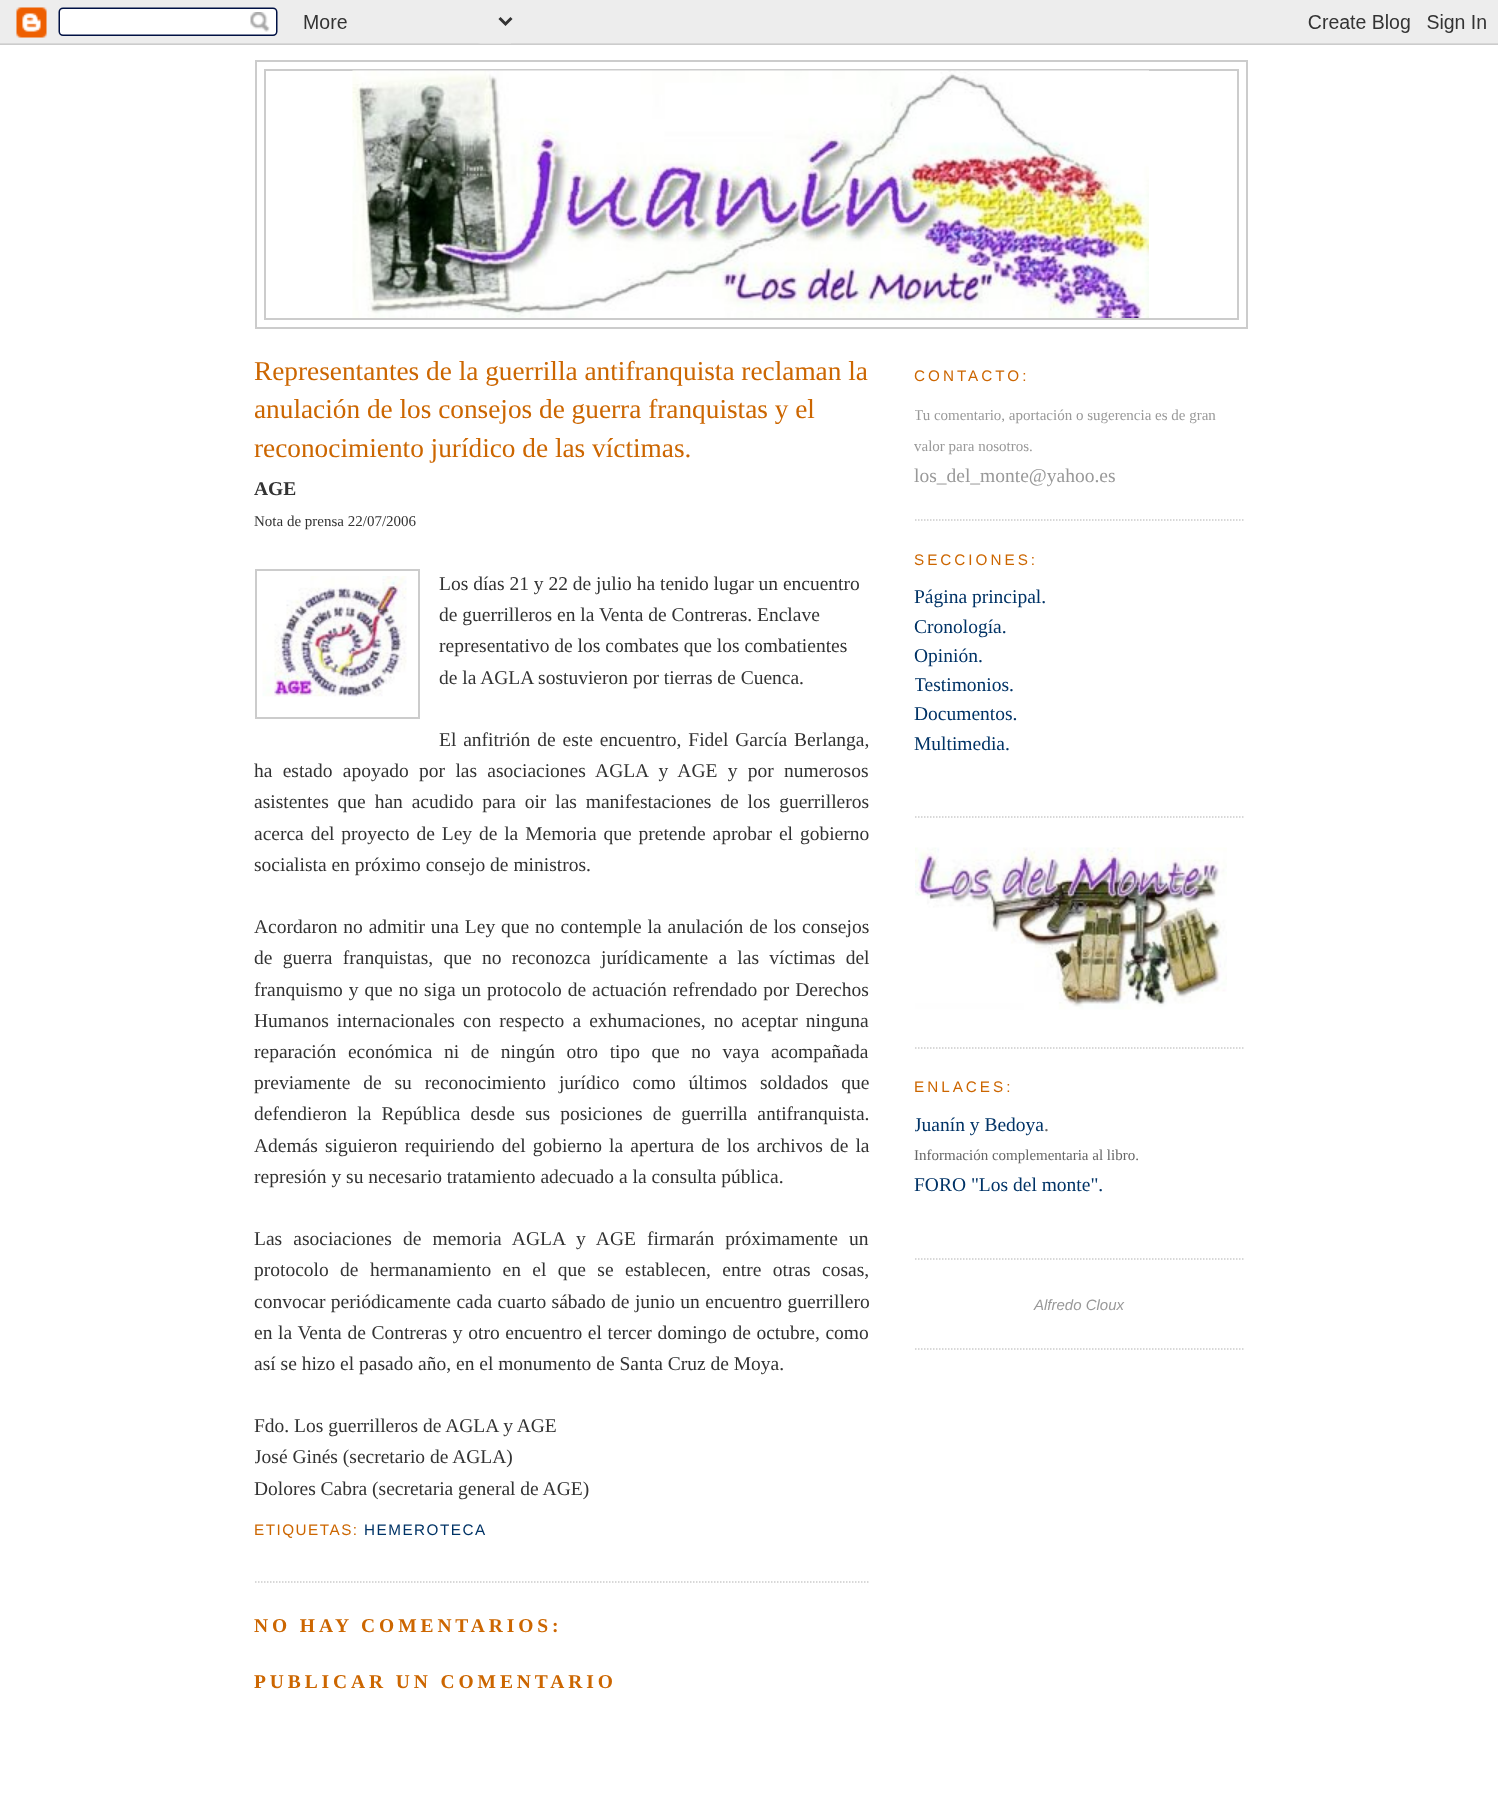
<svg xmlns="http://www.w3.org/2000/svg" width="1498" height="1818">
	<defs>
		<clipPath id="clip1"><rect x="255" y="344" width="615" height="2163" /></clipPath>
		<clipPath id="clip2"><rect x="915" y="344" width="330" height="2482" /></clipPath>
	</defs>
	<rect width="100%" height="100%" fill="#FFFFFF" />
	<image x="0" y="0" width="1498" height="45" href="assets/img1.png" />
	<rect x="256" y="61" width="991" height="267" fill="none" stroke="#CCCCCC" stroke-width="2" />
	<rect x="265" y="70" width="973" height="249" fill="none" stroke="#CCCCCC" stroke-width="2" />
	<image x="352" y="70" width="797" height="248" href="assets/img2.png" />
	<path d="M255 1582H870" fill="none" stroke="#CCCCCC" stroke-width="1.5" stroke-dasharray="1.5 1.5" />
	<g font-family="Liberation Serif" font-size="27.3" fill="#CC6600">
		<text x="254" y="380">Representantes de la guerrilla antifranquista reclaman la</text>
		<text x="254" y="418">anulación de los consejos de guerra franquistas y el</text>
		<text x="254" y="457">reconocimiento jurídico de las víctimas.</text>
	</g>
	<text x="254" y="495" font-family="Liberation Serif" font-size="19.5" font-weight="700" fill="#333333">AGE</text>
	<text x="254" y="526" font-family="Liberation Serif" font-size="15" fill="#333333">Nota de prensa 22/07/2006</text>
	<rect x="256" y="570" width="163" height="148" fill="none" stroke="#CCCCCC" stroke-width="2" />
	<image x="262" y="576" width="145" height="121" href="assets/img3.png" />
	<g font-family="Liberation Serif" font-size="19.5" fill="#333333">
		<text x="439" y="590">Los días 21 y 22 de julio ha tenido lugar un encuentro</text>
		<text x="439" y="621">de guerrilleros en la Venta de Contreras. Enclave</text>
		<text x="439" y="652">representativo de los combates que los combatientes</text>
		<text x="439" y="684">de la AGLA sostuvieron por tierras de Cuenca.</text>
		<text x="439" y="746" word-spacing="2">El anfitrión de este encuentro, Fidel García Berlanga,</text>
		<text x="254" y="777" word-spacing="5.4">ha estado apoyado por las asociaciones AGLA y AGE y por numerosos</text>
		<text x="254" y="808" word-spacing="4">asistentes que han acudido para oir las manifestaciones de los guerrilleros</text>
		<text x="254" y="840" word-spacing="2">acerca del proyecto de Ley de la Memoria que pretende aprobar el gobierno</text>
		<text x="254" y="871">socialista en próximo consejo de ministros.</text>
		<text x="254" y="933" word-spacing="1">Acordaron no admitir una Ley que no contemple la anulación de los consejos</text>
		<text x="254" y="964" word-spacing="5.4">de guerra franquistas, que no reconozca jurídicamente a las víctimas del</text>
		<text x="254" y="996" word-spacing="1.1">franquismo y que no siga un protocolo de actuación refrendado por Derechos</text>
		<text x="254" y="1027" word-spacing="3.25">Humanos internacionales con respecto a exhumaciones, no aceptar ninguna</text>
		<text x="254" y="1058" word-spacing="6.75">reparación económica ni de ningún otro tipo que no vaya acompañada</text>
		<text x="254" y="1089" word-spacing="8">previamente de su reconocimiento jurídico como últimos soldados que</text>
		<text x="254" y="1120" word-spacing="5.25">defendieron la República desde sus posiciones de guerrilla antifranquista.</text>
		<text x="254" y="1152" word-spacing="2.25">Además siguieron requiriendo del gobierno la apertura de los archivos de la</text>
		<text x="254" y="1183">represión y su necesario tratamiento adecuado a la consulta pública.</text>
		<text x="254" y="1245" word-spacing="6.25">Las asociaciones de memoria AGLA y AGE firmarán próximamente un</text>
		<text x="254" y="1276" word-spacing="6.5">protocolo de hermanamiento en el que se establecen, entre otras cosas,</text>
		<text x="254" y="1308" word-spacing="0.5">convocar periódicamente cada cuarto sábado de junio un encuentro guerrillero</text>
		<text x="254" y="1339" word-spacing="0.75">en la Venta de Contreras y otro encuentro el tercer domingo de octubre, como</text>
		<text x="254" y="1370">así se hizo el pasado año, en el monumento de Santa Cruz de Moya.</text>
		<text x="254" y="1432">Fdo. Los guerrilleros de AGLA y AGE</text>
	</g>
	<g clip-path="url(#clip1)">
		<text x="254" y="1463" font-family="Liberation Serif" font-size="19.5" fill="#333333">José Ginés (secretario de AGLA)</text>
	</g>
	<text x="254" y="1495" font-family="Liberation Serif" font-size="19.5" fill="#333333">Dolores Cabra (secretaria general de AGE)</text>
	<text x="254" y="1535" font-family="Liberation Sans" font-size="15.25" letter-spacing="1.5" fill="#CC6600">ETIQUETAS:</text>
	<text x="364" y="1535" font-family="Liberation Sans" font-size="15.25" letter-spacing="1.5" fill="#003366">HEMEROTECA</text>
	<g font-family="Liberation Serif" font-size="19.5" font-weight="700" letter-spacing="3.9" fill="#CC6600">
		<text x="254" y="1632">NO HAY COMENTARIOS:</text>
		<text x="254" y="1688">PUBLICAR UN COMENTARIO</text>
	</g>
	<path d="M915 520H1245" fill="none" stroke="#CCCCCC" stroke-width="1.5" stroke-dasharray="1.5 1.5" />
	<text x="914" y="381" font-family="Liberation Sans" font-size="15.25" letter-spacing="3" fill="#CC6600">CONTACTO:</text>
	<g clip-path="url(#clip2)">
		<text x="914" y="420" font-family="Liberation Serif" font-size="15" fill="#999999">Tu comentario, aportación o sugerencia es de gran</text>
	</g>
	<text x="914" y="451" font-family="Liberation Serif" font-size="15" fill="#999999">valor para nosotros.</text>
	<text x="914" y="482" font-family="Liberation Serif" font-size="19.5" fill="#999999">los_del_monte@yahoo.es</text>
	<path d="M915 817H1245" fill="none" stroke="#CCCCCC" stroke-width="1.5" stroke-dasharray="1.5 1.5" />
	<text x="914" y="565" font-family="Liberation Sans" font-size="15.25" letter-spacing="3" fill="#CC6600">SECCIONES:</text>
	<g font-family="Liberation Serif" font-size="19.5" fill="#003366">
		<text x="914" y="603">Página principal.</text>
		<text x="914" y="633">Cronología.</text>
		<text x="914" y="662">Opinión.</text>
	</g>
	<g clip-path="url(#clip2)">
		<text x="914" y="691" font-family="Liberation Serif" font-size="19.5" fill="#003366">Testimonios.</text>
	</g>
	<g font-family="Liberation Serif" font-size="19.5" fill="#003366">
		<text x="914" y="720">Documentos.</text>
		<text x="914" y="750">Multimedia.</text>
	</g>
	<path d="M915 1048H1245" fill="none" stroke="#CCCCCC" stroke-width="1.5" stroke-dasharray="1.5 1.5" />
	<image x="915" y="847" width="312" height="163" href="assets/img4.png" />
	<path d="M915 1259H1245" fill="none" stroke="#CCCCCC" stroke-width="1.5" stroke-dasharray="1.5 1.5" />
	<text x="914" y="1092" font-family="Liberation Sans" font-size="15.25" letter-spacing="3" fill="#CC6600">ENLACES:</text>
	<g clip-path="url(#clip2)">
		<text x="914" y="1131" font-family="Liberation Serif" font-size="19.5" fill="#003366">Juanín y Bedoya</text>
	</g>
	<text x="1044" y="1131" font-family="Liberation Serif" font-size="19.5" fill="#666666">.</text>
	<text x="914" y="1160" font-family="Liberation Serif" font-size="15" fill="#666666">Información complementaria al libro.</text>
	<text x="914" y="1191" font-family="Liberation Serif" font-size="19.5" fill="#003366">FORO "Los del monte".</text>
	<path d="M915 1349H1245" fill="none" stroke="#CCCCCC" stroke-width="1.5" stroke-dasharray="1.5 1.5" />
	<text x="1034" y="1310" font-family="Liberation Sans" font-size="15" font-style="italic" fill="#999999">Alfredo Cloux</text>
</svg>
